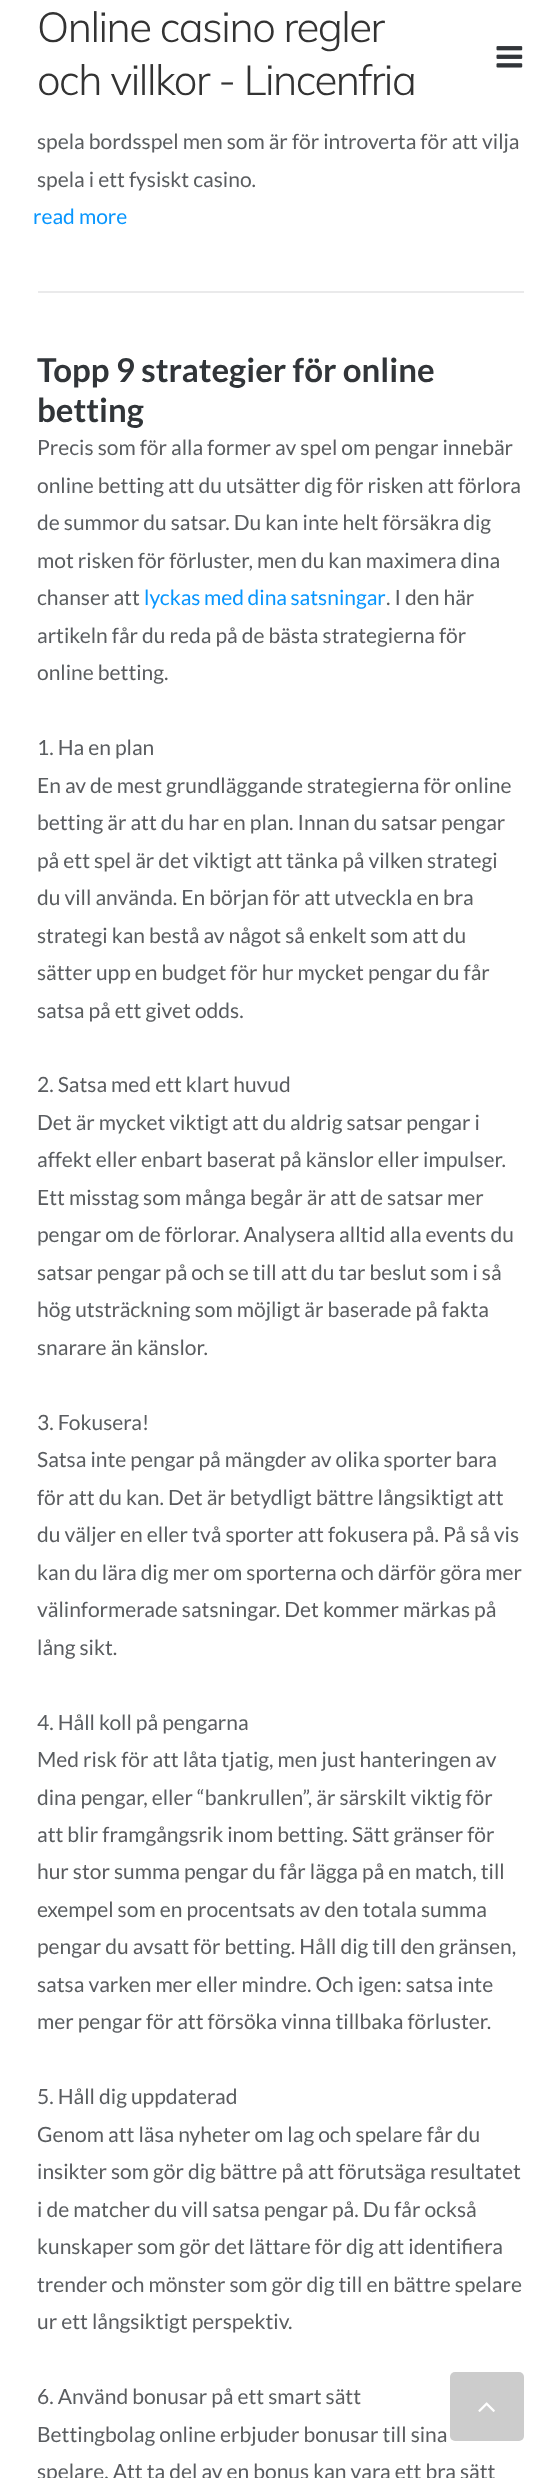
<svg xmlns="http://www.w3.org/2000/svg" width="560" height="2478">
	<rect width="100%" height="100%" fill="#FFFFFF" />
	<g font-family="Mulish" font-size="42" font-weight="200" letter-spacing="-1.5" fill="#333333">
		<text x="37" y="42">Online casino regler</text>
		<text x="37" y="95">och villkor - Lincenfria</text>
	</g>
	<image x="496" y="46" width="27" height="22" href="assets/img1.png" />
	<rect x="38" y="291" width="486" height="2" fill="#EAEAEB" />
	<g font-family="Lato" font-size="21" fill="#5A5D60">
		<text x="37" y="149">spela bordsspel men som är för introverta för att vilja</text>
		<text x="37" y="187">spela i ett fysiskt casino.</text>
	</g>
	<text x="33" y="224" font-family="Lato" font-size="21" fill="#0896FE">read more</text>
	<g font-family="Lato" font-size="33" font-weight="700" fill="#313539">
		<text x="37" y="382">Topp 9 strategier för online</text>
		<text x="37" y="422">betting</text>
	</g>
	<g font-family="Lato" font-size="21" fill="#5A5D60">
		<text x="37" y="455">Precis som för alla former av spel om pengar innebär</text>
		<text x="37" y="493">online betting att du utsätter dig för risken att förlora</text>
		<text x="37" y="530">de summor du satsar. Du kan inte helt försäkra dig</text>
		<text x="37" y="568">mot risken för förluster, men du kan maximera dina</text>
		<text x="37" y="605">chanser att</text>
	</g>
	<text x="144" y="605" word-spacing="-0.5" font-family="Lato" font-size="21" fill="#0896FE">lyckas med dina satsningar</text>
	<g font-family="Lato" font-size="21" fill="#5A5D60">
		<text x="386" y="605">. I den här</text>
		<text x="37" y="643">artikeln får du reda på de bästa strategierna för</text>
		<text x="37" y="680">online betting.</text>
		<text x="37" y="755">1. Ha en plan</text>
		<text x="37" y="793">En av de mest grundläggande strategierna för online</text>
		<text x="37" y="830">betting är att du har en plan. Innan du satsar pengar</text>
		<text x="37" y="868">på ett spel är det viktigt att tänka på vilken strategi</text>
		<text x="37" y="905">du vill använda. En början för att utveckla en bra</text>
		<text x="37" y="943">strategi kan bestå av något så enkelt som att du</text>
		<text x="37" y="980">sätter upp en budget för hur mycket pengar du får</text>
		<text x="37" y="1018">satsa på ett givet odds.</text>
		<text x="37" y="1092">2. Satsa med ett klart huvud</text>
		<text x="37" y="1130">Det är mycket viktigt att du aldrig satsar pengar i</text>
		<text x="37" y="1167">affekt eller enbart baserat på känslor eller impulser.</text>
		<text x="37" y="1205">Ett misstag som många begår är att de satsar mer</text>
		<text x="37" y="1242">pengar om de förlorar. Analysera alltid alla events du</text>
		<text x="37" y="1280">satsar pengar på och se till att du tar beslut som i så</text>
		<text x="37" y="1317">hög utsträckning som möjligt är baserade på fakta</text>
		<text x="37" y="1355">snarare än känslor.</text>
		<text x="37" y="1430">3. Fokusera!</text>
		<text x="37" y="1467">Satsa inte pengar på mängder av olika sporter bara</text>
		<text x="37" y="1505">för att du kan. Det är betydligt bättre långsiktigt att</text>
		<text x="37" y="1542">du väljer en eller två sporter att fokusera på. På så vis</text>
		<text x="37" y="1580">kan du lära dig mer om sporterna och därför göra mer</text>
		<text x="37" y="1617">välinformerade satsningar. Det kommer märkas på</text>
		<text x="37" y="1655">lång sikt.</text>
		<text x="37" y="1730">4. Håll koll på pengarna</text>
		<text x="37" y="1767">Med risk för att låta tjatig, men just hanteringen av</text>
		<text x="37" y="1805">dina pengar, eller “bankrullen”, är särskilt viktig för</text>
		<text x="37" y="1842">att blir framgångsrik inom betting. Sätt gränser för</text>
		<text x="37" y="1879">hur stor summa pengar du får lägga på en match, till</text>
		<text x="37" y="1917">exempel som en procentsats av den totala summa</text>
		<text x="37" y="1954">pengar du avsatt för betting. Håll dig till den gränsen,</text>
		<text x="37" y="1992">satsa varken mer eller mindre. Och igen: satsa inte</text>
		<text x="37" y="2029">mer pengar för att försöka vinna tillbaka förluster.</text>
		<text x="37" y="2104">5. Håll dig uppdaterad</text>
		<text x="37" y="2142">Genom att läsa nyheter om lag och spelare får du</text>
		<text x="37" y="2179">insikter som gör dig bättre på att förutsäga resultatet</text>
		<text x="37" y="2217">i de matcher du vill satsa pengar på. Du får också</text>
		<text x="37" y="2254">kunskaper som gör det lättare för dig att identifiera</text>
		<text x="37" y="2292">trender och mönster som gör dig till en bättre spelare</text>
		<text x="37" y="2329">ur ett långsiktigt perspektiv.</text>
		<text x="37" y="2404">6. Använd bonusar på ett smart sätt</text>
		<text x="37" y="2442">Bettingbolag online erbjuder bonusar till sina</text>
		<text x="37" y="2479">spelare. Att ta del av en bonus kan vara ett bra sätt</text>
	</g>
	<rect x="450" y="2372" width="74" height="69" rx="5" fill="#CCCCCC" />
	<image x="478" y="2402" width="17" height="10" href="assets/img2.png" />
</svg>
